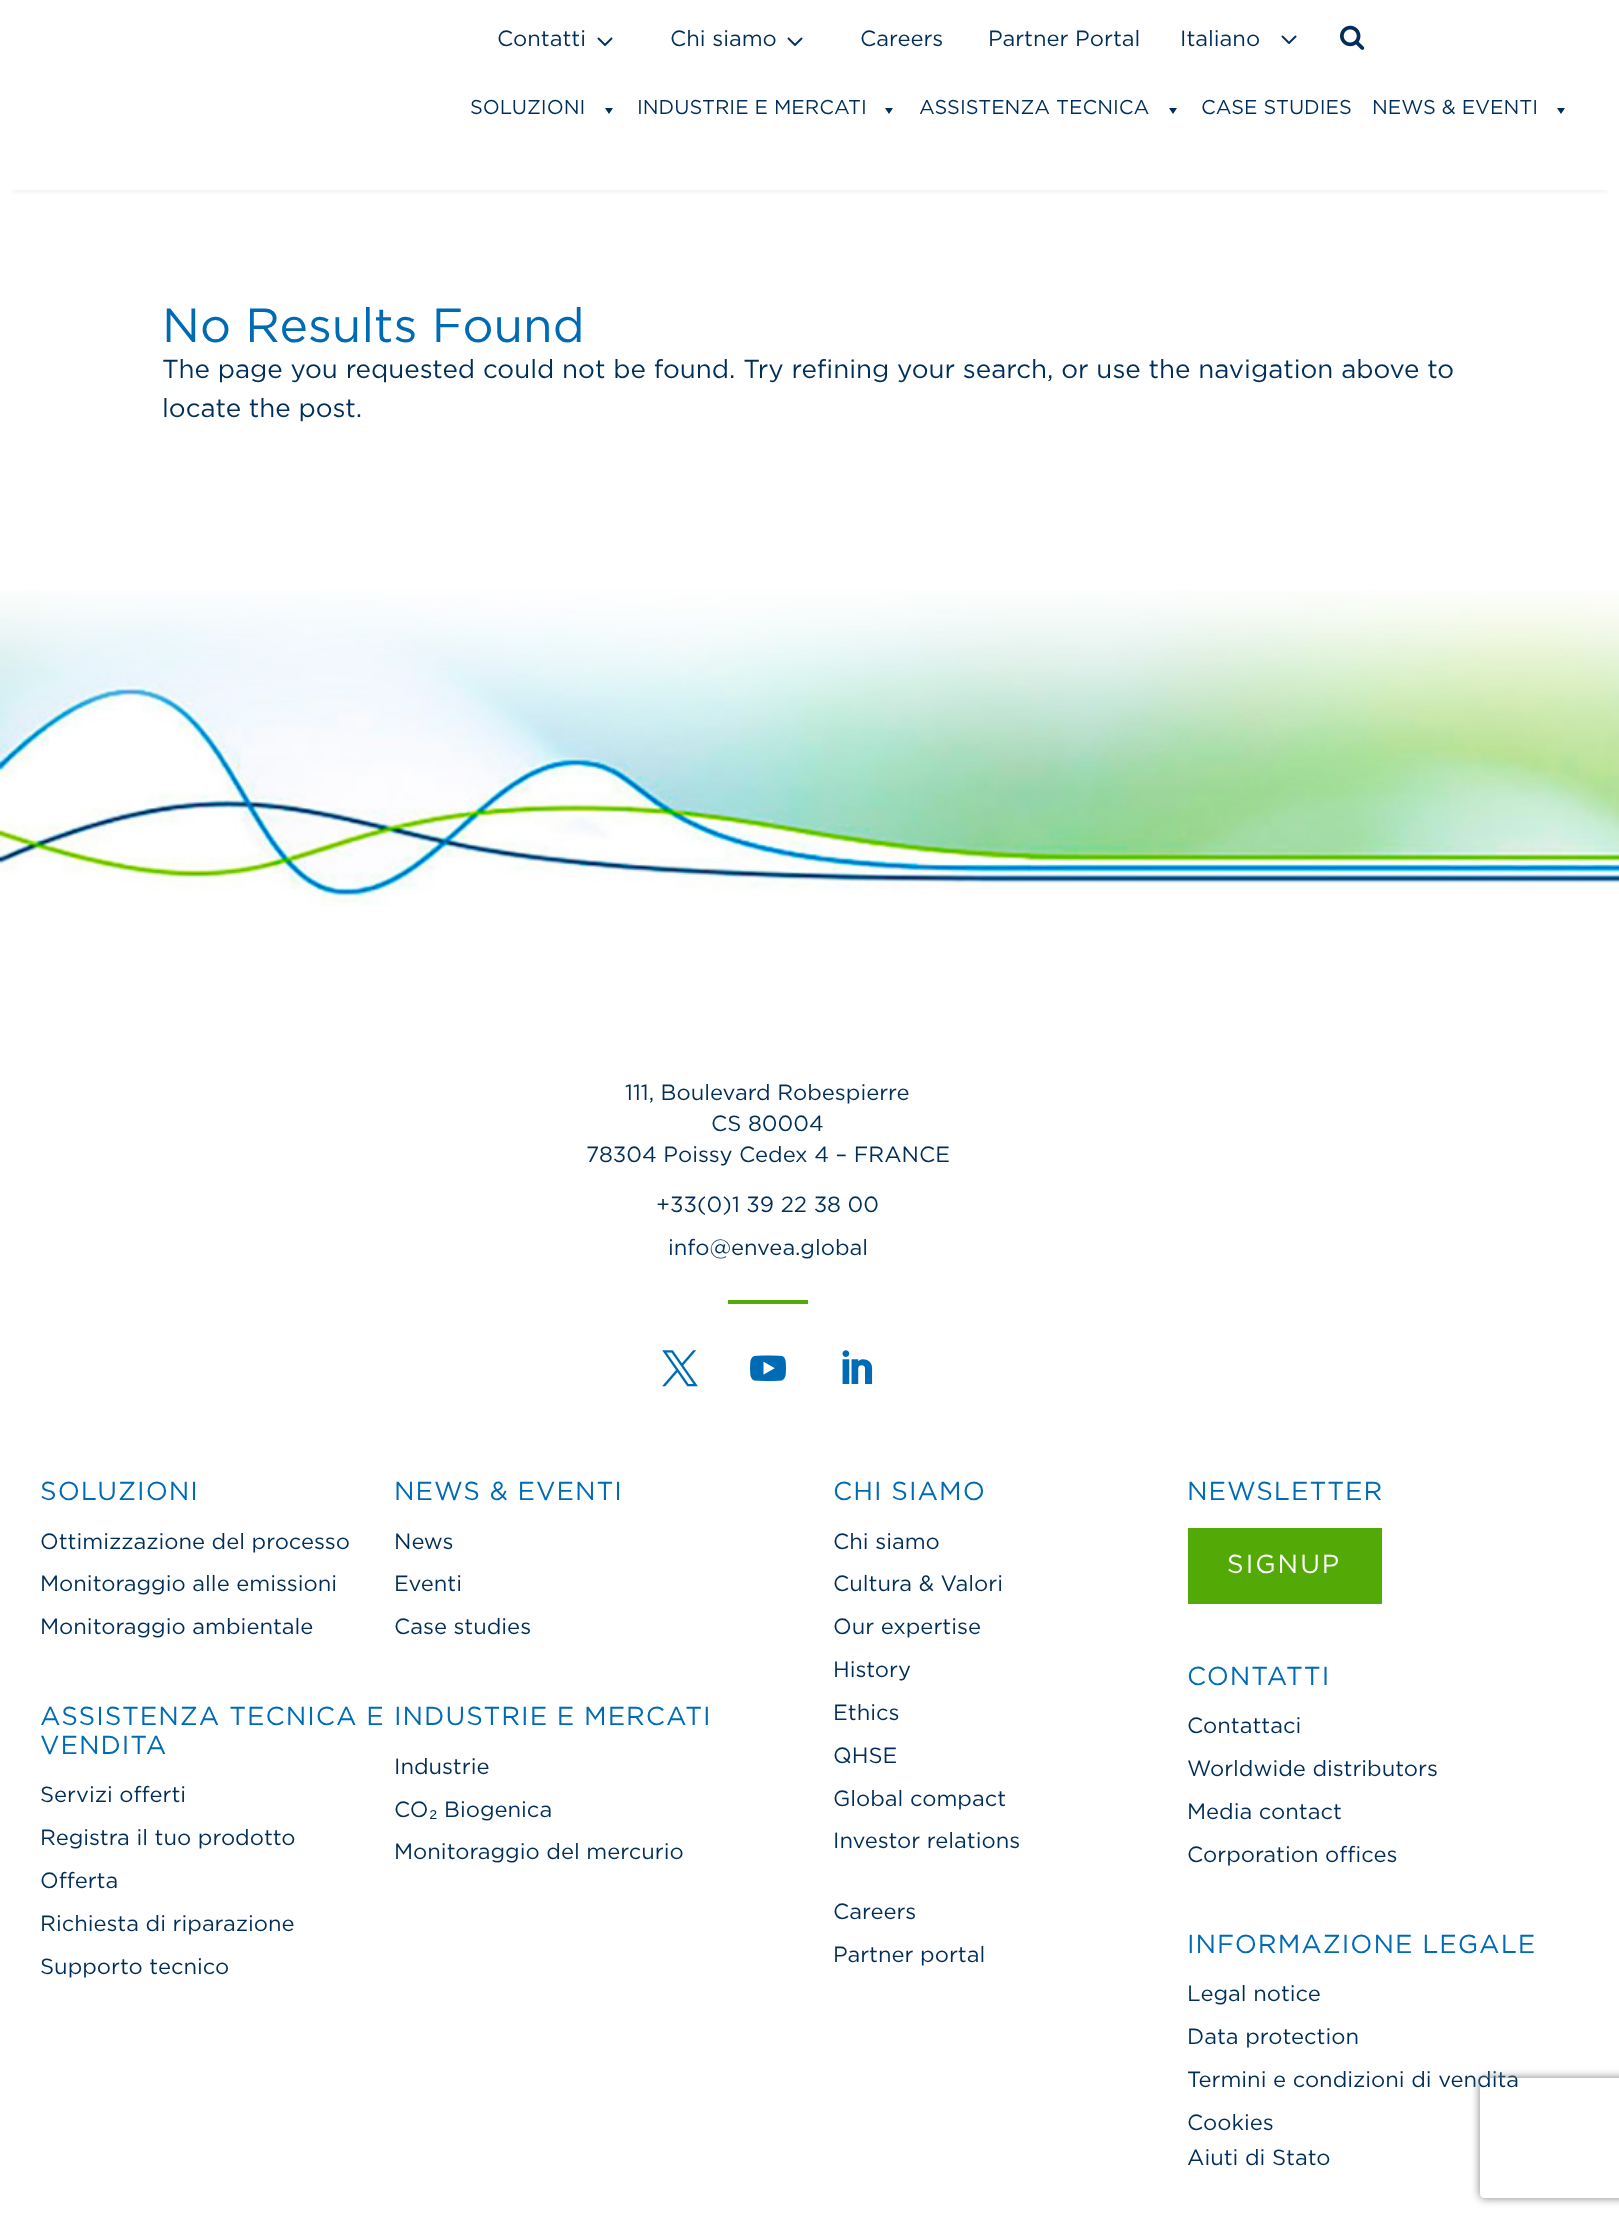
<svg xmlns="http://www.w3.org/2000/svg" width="1619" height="2225">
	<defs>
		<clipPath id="clip1"><rect x="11" y="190" width="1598" height="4" /></clipPath>
		<clipPath id="clip2"><path d="M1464 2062H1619V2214H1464ZM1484 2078H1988C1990 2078 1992 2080 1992 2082V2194C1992 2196 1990 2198 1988 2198H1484C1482 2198 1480 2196 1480 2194V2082C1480 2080 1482 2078 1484 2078Z" clip-rule="evenodd" /></clipPath>
	</defs>
	<rect width="100%" height="100%" fill="#FFFFFF" />
	<g clip-path="url(#clip1)">
		<rect x="12" y="22" width="1596" height="166" fill="#000000" fill-opacity="0.15" filter="blur(5px)" />
	</g>
	<text x="497" y="46" font-family="Gotham" font-size="22" fill="#002E59">Contatti</text>
	<image x="597" y="37" width="16" height="9" href="assets/img1.png" />
	<text x="670" y="46" font-family="Gotham" font-size="22" fill="#002E59">Chi siamo</text>
	<image x="787" y="37" width="16" height="9" href="assets/img1.png" />
	<g font-family="Gotham" font-size="22" fill="#002E59">
		<text x="860" y="46">Careers</text>
		<text x="988" y="46">Partner Portal</text>
		<text x="1180" y="46">Italiano</text>
	</g>
	<image x="1281" y="35" width="16" height="9" href="assets/img1.png" />
	<image x="1340" y="25" width="25" height="25" href="assets/img2.png" />
	<text x="470" y="114" font-family="Gotham" font-size="20" fill="#002E59">SOLUZIONI</text>
	<path d="M613 108L609 114L605 108Z" fill="#002E59" />
	<text x="637" y="114" font-family="Gotham" font-size="20" fill="#002E59">INDUSTRIE E MERCATI</text>
	<path d="M893 108L889 114L885 108Z" fill="#002E59" />
	<text x="919" y="114" font-family="Gotham" font-size="20" fill="#002E59">ASSISTENZA TECNICA</text>
	<path d="M1177 108L1173 114L1169 108Z" fill="#002E59" />
	<g font-family="Gotham" font-size="20" fill="#002E59">
		<text x="1201" y="114">CASE STUDIES</text>
		<text x="1372" y="114">NEWS &amp; EVENTI</text>
	</g>
	<path d="M1565 108L1561 114L1557 108Z" fill="#002E59" />
	<text x="162" y="342" font-family="Gotham" font-size="48" fill="#006BB5">No Results Found</text>
	<g font-family="Gotham" font-size="26" fill="#002E59">
		<text x="162" y="378">The page you requested could not be found. Try refining your search, or use the navigation above to</text>
		<text x="162" y="417">locate the post.</text>
	</g>
	<image x="0" y="590" width="1619" height="317" href="assets/img3.png" />
	<g font-family="Gotham" font-size="22" fill="#002E59">
		<text x="625" y="1100">111, Boulevard Robespierre</text>
		<text x="711" y="1131">CS 80004</text>
		<text x="586" y="1162">78304 Poissy Cedex 4 – FRANCE</text>
		<text x="656" y="1212">+33(0)1 39 22 38 00</text>
		<text x="668" y="1255">info@envea.global</text>
	</g>
	<rect x="728" y="1300" width="80" height="4" fill="#53A906" />
	<image x="662" y="1350" width="36" height="37" href="assets/img4.png" />
	<image x="750" y="1355" width="36" height="27" href="assets/img5.png" />
	<image x="842" y="1350" width="31" height="34" href="assets/img6.png" />
	<text x="40" y="1500" font-family="Gotham" font-size="26" letter-spacing="1" fill="#006BB5">SOLUZIONI</text>
	<g font-family="Gotham" font-size="22" fill="#002E59">
		<text x="40" y="1549">Ottimizzazione del processo</text>
		<text x="40" y="1591">Monitoraggio alle emissioni</text>
		<text x="40" y="1634">Monitoraggio ambientale</text>
	</g>
	<g font-family="Gotham" font-size="26" letter-spacing="1" fill="#006BB5">
		<text x="40" y="1725">ASSISTENZA TECNICA E</text>
		<text x="40" y="1754">VENDITA</text>
	</g>
	<g font-family="Gotham" font-size="22" fill="#002E59">
		<text x="40" y="1802">Servizi offerti</text>
		<text x="40" y="1845">Registra il tuo prodotto</text>
		<text x="40" y="1888">Offerta</text>
		<text x="40" y="1931">Richiesta di riparazione</text>
		<text x="40" y="1974">Supporto tecnico</text>
	</g>
	<text x="394" y="1500" font-family="Gotham" font-size="26" letter-spacing="1" fill="#006BB5">NEWS &amp; EVENTI</text>
	<g font-family="Gotham" font-size="22" fill="#002E59">
		<text x="394" y="1549">News</text>
		<text x="394" y="1591">Eventi</text>
		<text x="394" y="1634">Case studies</text>
	</g>
	<text x="394" y="1725" font-family="Gotham" font-size="26" letter-spacing="1" fill="#006BB5">INDUSTRIE E MERCATI</text>
	<g font-family="Gotham" font-size="22" fill="#002E59">
		<text x="394" y="1774">Industrie</text>
		<text x="394" y="1817">CO</text>
	</g>
	<text x="429" y="1817" font-family="Liberation Sans" font-size="22" fill="#002E59">₂</text>
	<g font-family="Gotham" font-size="22" fill="#002E59">
		<text x="444" y="1817">Biogenica</text>
		<text x="394" y="1859">Monitoraggio del mercurio</text>
	</g>
	<text x="833" y="1500" font-family="Gotham" font-size="26" letter-spacing="1" fill="#006BB5">CHI SIAMO</text>
	<g font-family="Gotham" font-size="22" fill="#002E59">
		<text x="833" y="1549">Chi siamo</text>
		<text x="833" y="1591">Cultura &amp; Valori</text>
		<text x="833" y="1634">Our expertise</text>
		<text x="833" y="1677">History</text>
		<text x="833" y="1720">Ethics</text>
		<text x="833" y="1763">QHSE</text>
		<text x="833" y="1806">Global compact</text>
		<text x="833" y="1848">Investor relations</text>
		<text x="833" y="1919">Careers</text>
		<text x="833" y="1962">Partner portal</text>
	</g>
	<text x="1187" y="1500" font-family="Gotham" font-size="26" letter-spacing="1" fill="#006BB5">NEWSLETTER</text>
	<rect x="1188" y="1528" width="194" height="76" fill="#53A906" />
	<text x="1227" y="1573" font-family="Gotham" font-size="26" letter-spacing="2" fill="#FFFFFF">SIGNUP</text>
	<text x="1187" y="1685" font-family="Gotham" font-size="26" letter-spacing="1" fill="#006BB5">CONTATTI</text>
	<g font-family="Gotham" font-size="22" fill="#002E59">
		<text x="1187" y="1733">Contattaci</text>
		<text x="1187" y="1776">Worldwide distributors</text>
		<text x="1187" y="1819">Media contact</text>
		<text x="1187" y="1862">Corporation offices</text>
	</g>
	<text x="1187" y="1953" font-family="Gotham" font-size="26" letter-spacing="1" fill="#006BB5">INFORMAZIONE LEGALE</text>
	<g font-family="Gotham" font-size="22" fill="#002E59">
		<text x="1187" y="2001">Legal notice</text>
		<text x="1187" y="2044">Data protection</text>
		<text x="1187" y="2087">Termini e condizioni di vendita</text>
		<text x="1187" y="2130">Cookies</text>
		<text x="1187" y="2165">Aiuti di Stato</text>
	</g>
	<g clip-path="url(#clip2)">
		<rect x="1480" y="2078" width="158" height="120" rx="4" fill="#808080" filter="blur(5px)" />
	</g>
</svg>
